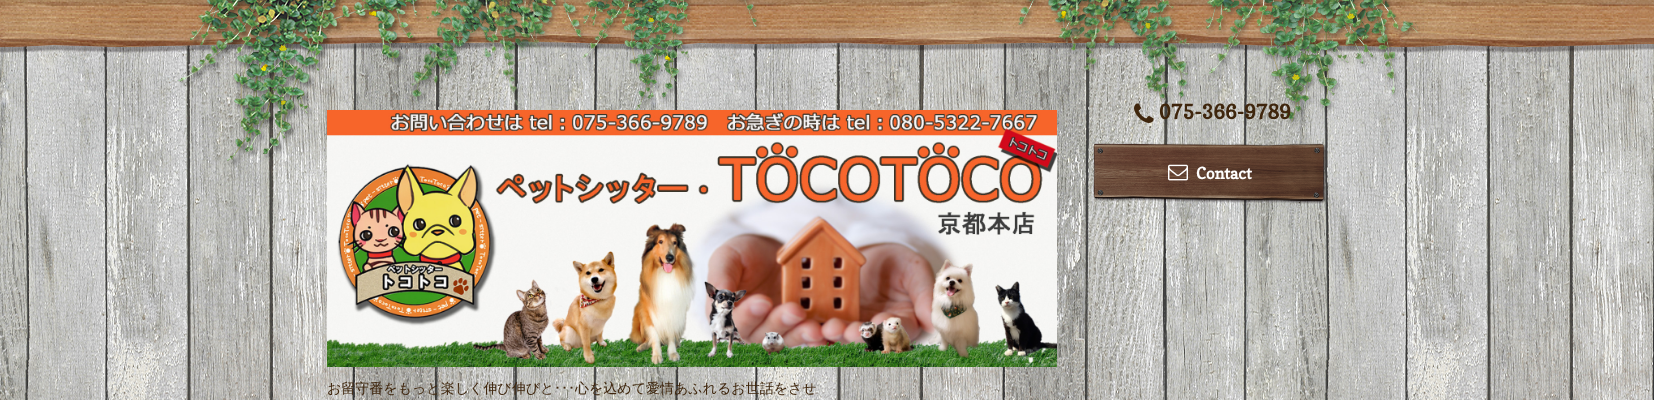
<svg xmlns="http://www.w3.org/2000/svg" width="1654" height="400">
	<rect width="100%" height="100%" fill="#FFFFFF" />
	<image x="0" y="39" width="1654" height="361" href="assets/img1.png" />
	<image x="0" y="0" width="1654" height="53" href="assets/img2.png" />
	<image x="178" y="0" width="1246" height="167" href="assets/img3.png" />
	<image x="1134" y="103" width="20" height="20" href="assets/img4.png" />
	<text x="1159" y="119" font-family="Copse" font-size="20" font-weight="700" fill="#3F260D">075-366-9789</text>
	<image x="1093" y="143" width="234" height="61" href="assets/img5.png" />
	<image x="1168" y="164" width="20" height="17" href="assets/img6.png" />
	<text x="1196" y="179" font-family="Copse" font-size="16" font-weight="700" fill="#FFFFFF">Contact</text>
	<image x="327" y="110" width="730" height="257" href="assets/img7.png" />
	<text x="327" y="393" font-family="WenQuanYi Zen Hei" font-size="14" font-weight="500" fill="#3F260D">お留守番をもっと楽しく伸び伸びと</text>
	<text x="554" y="393" font-family="IPAPGothic" font-size="14" fill="#3F260D">･･･</text>
	<text x="575" y="393" font-family="WenQuanYi Zen Hei" font-size="14" font-weight="500" fill="#3F260D">心を込めて愛情あふれるお世話をさせ</text>
</svg>
